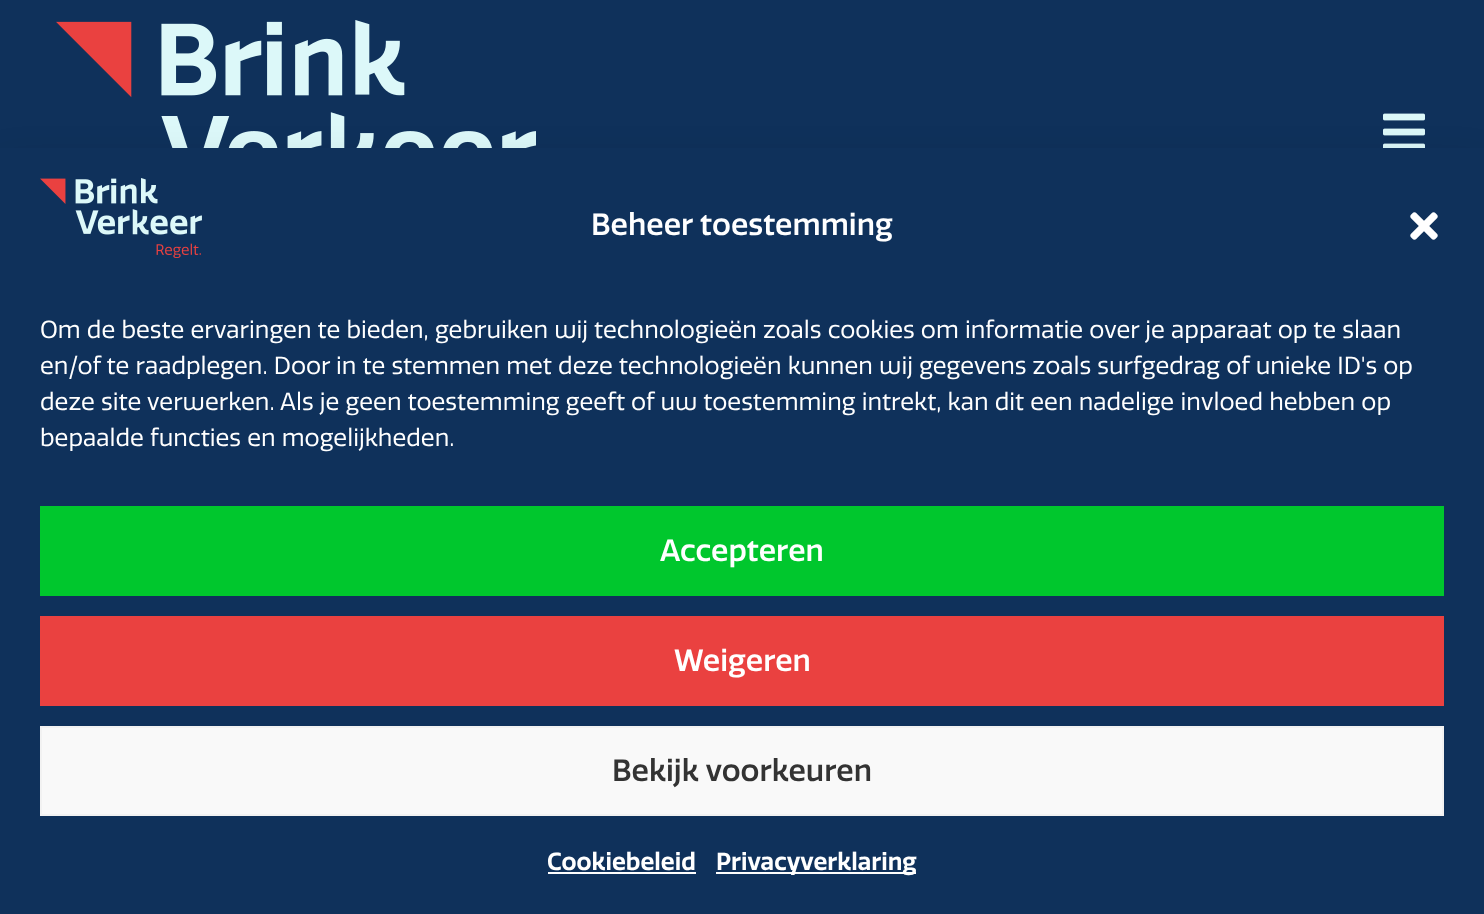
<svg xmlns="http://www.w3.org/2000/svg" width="1484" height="914">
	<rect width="100%" height="100%" fill="#0F315B" />
	<image x="56" y="20" width="480" height="128" href="assets/img1.png" />
	<image x="1383" y="113" width="42" height="35" href="assets/img2.png" />
	<rect x="0" y="168" width="1484" height="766" fill="#000000" fill-opacity="0.19" filter="blur(20px)" />
	<rect x="0" y="148" width="1484" height="766" fill="#0F315B" />
	<image x="40" y="178" width="162" height="80" href="assets/img3.png" />
	<text x="591" y="235" font-family="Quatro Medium" font-size="30" font-weight="500" fill="#FFFFFF">Beheer toestemming</text>
	<image x="1410" y="212" width="28" height="28" href="assets/img4.png" />
	<g font-family="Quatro" font-size="24" fill="#FFFFFF">
		<text x="40" y="338">Om de beste ervaringen te bieden, gebruiken wij technologieën zoals cookies om informatie over je apparaat op te slaan</text>
		<text x="40" y="374">en/of te raadplegen. Door in te stemmen met deze technologieën kunnen wij gegevens zoals surfgedrag of unieke ID's op</text>
		<text x="40" y="410">deze site verwerken. Als je geen toestemming geeft of uw toestemming intrekt, kan dit een nadelige invloed hebben op</text>
		<text x="40" y="446">bepaalde functies en mogelijkheden.</text>
	</g>
	<rect x="40" y="506" width="1404" height="90" fill="#00C72D" />
	<text x="660" y="561" font-family="Quatro Medium" font-size="30" font-weight="500" fill="#FFFFFF">Accepteren</text>
	<rect x="40" y="616" width="1404" height="90" fill="#EA4140" />
	<text x="674" y="671" font-family="Quatro Medium" font-size="30" font-weight="500" fill="#FFFFFF">Weigeren</text>
	<rect x="41" y="727" width="1402" height="88" fill="#F9F9F9" stroke="#F2F2F2" stroke-width="2" />
	<text x="612" y="781" font-family="Quatro Medium" font-size="30" font-weight="500" fill="#333333">Bekijk voorkeuren</text>
	<text x="547" y="870" font-family="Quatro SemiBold" font-size="24" font-weight="600" fill="#FFFFFF">Cookiebeleid</text>
	<rect x="548" y="872" width="148" height="2" fill="#FFFFFF" />
	<rect x="716" y="872" width="200" height="2" fill="#FFFFFF" />
	<text x="716" y="870" font-family="Quatro SemiBold" font-size="24" font-weight="600" fill="#FFFFFF">Privacyverklaring</text>
</svg>
